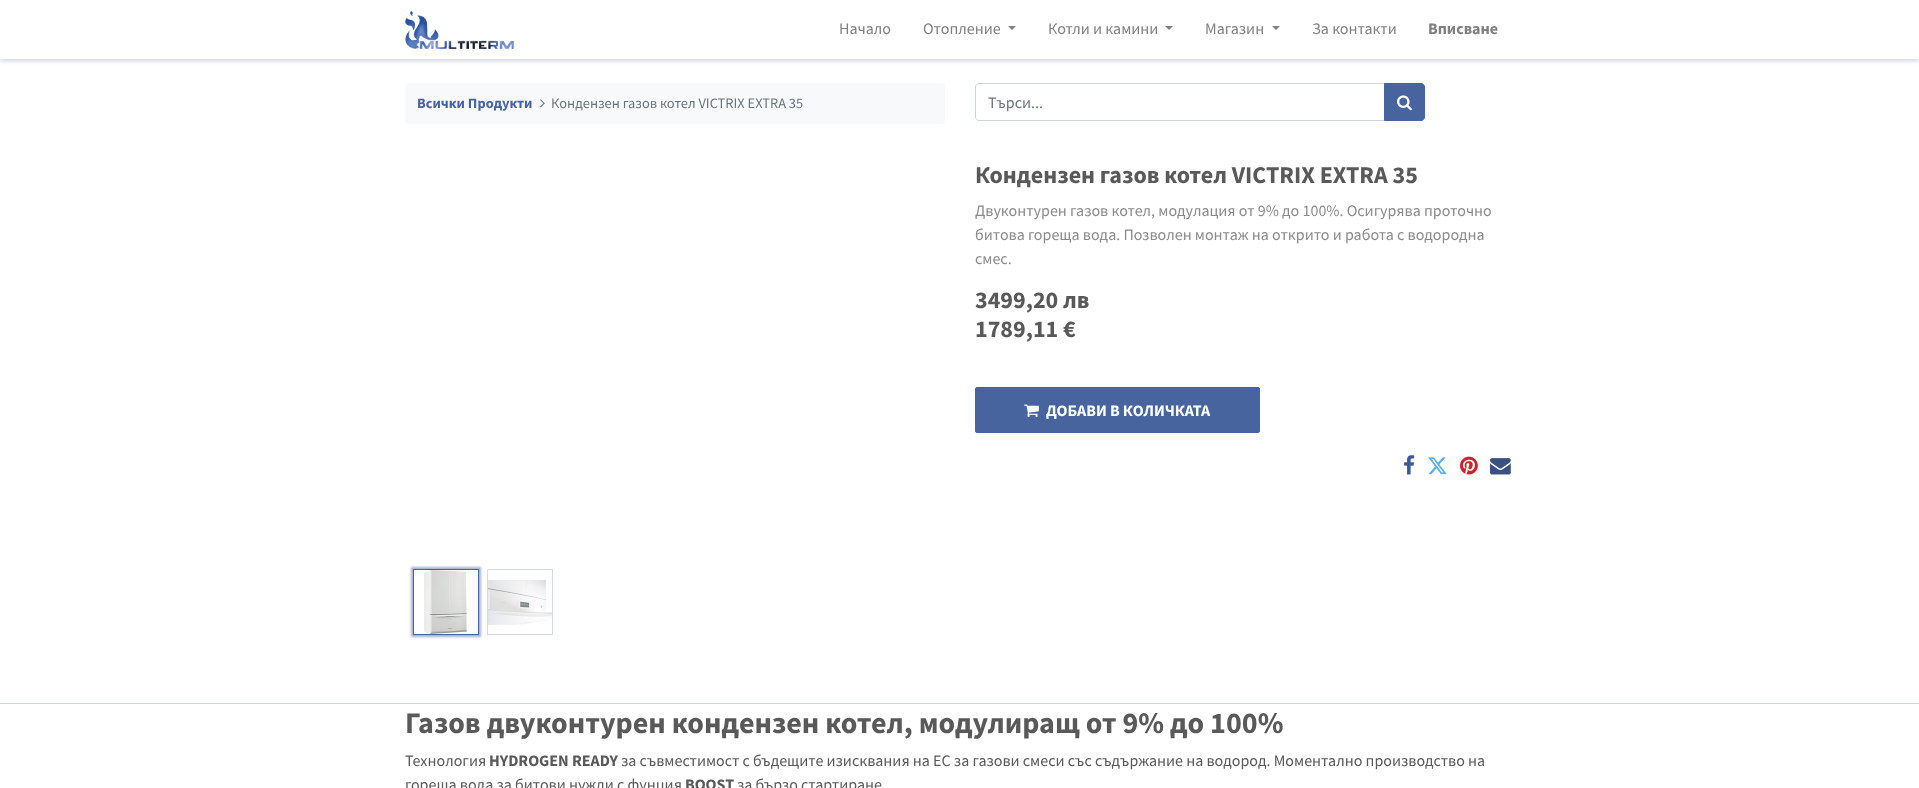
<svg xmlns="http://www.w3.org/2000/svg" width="1919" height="788">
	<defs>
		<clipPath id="clip1"><rect x="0" y="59" width="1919" height="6" /></clipPath>
		<clipPath id="clip2"><path d="M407 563H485V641H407ZM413 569H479V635H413Z" clip-rule="evenodd" /></clipPath>
	</defs>
	<rect width="100%" height="100%" fill="#FFFFFF" />
	<g clip-path="url(#clip1)">
		<rect x="0" y="2" width="1919" height="59" fill="#CED4E2" filter="blur(2px)" />
	</g>
	<image x="405" y="10" width="109" height="39" href="assets/img1.png" />
	<g font-family="Source Sans Pro" font-size="16" fill="#808080">
		<text x="839" y="34">Начало</text>
		<text x="923" y="34">Отопление</text>
	</g>
	<path d="M1008 26H1016L1012 30Z" fill="#808080" />
	<text x="1048" y="34" font-family="Source Sans Pro" font-size="16" fill="#808080">Котли и камини</text>
	<path d="M1165 26H1173L1169 30Z" fill="#808080" />
	<text x="1205" y="34" font-family="Source Sans Pro" font-size="16" fill="#808080">Магазин</text>
	<path d="M1272 26H1280L1276 30Z" fill="#808080" />
	<text x="1312" y="34" font-family="Source Sans Pro" font-size="16" fill="#808080">За контакти</text>
	<text x="1428" y="34" font-family="Source Sans Pro" font-size="16" font-weight="700" fill="#808080">Вписване</text>
	<rect x="405" y="83" width="540" height="41" rx="4" fill="#F8F9FA" />
	<text x="417" y="108" font-family="Source Sans Pro" font-size="14.4" font-weight="700" fill="#48649E">Всички Продукти</text>
	<image x="540" y="99" width="5" height="9" href="assets/img2.png" />
	<text x="551" y="108" font-family="Source Sans Pro" font-size="14.4" fill="#6C757D">Кондензен газов котел VICTRIX EXTRA 35</text>
	<path d="M979 83.5H1384.5V120.5H979C977 120.5 975.5 119 975.5 117V87C975.5 85 977 83.5 979 83.5Z" fill="none" stroke="#CED4DA" />
	<text x="988" y="108" font-family="Source Sans Pro" font-size="16" fill="#6C757D">Търси...</text>
	<path d="M1384.5 83.5H1421C1423 83.5 1424.5 85 1424.5 87V117C1424.5 119 1423 120.5 1421 120.5H1384.5Z" fill="#48649E" stroke="#48649E" />
	<image x="1397" y="95" width="15" height="16" href="assets/img3.png" />
	<text x="975" y="183" font-family="Source Sans Pro" font-size="24" font-weight="700" fill="#595959">Кондензен газов котел VICTRIX EXTRA 35</text>
	<g font-family="Source Sans Pro" font-size="16" fill="#8B8B8B">
		<text x="975" y="216">Двуконтурен газов котел, модулация от 9% до 100%. Осигурява проточно</text>
		<text x="975" y="240">битова гореща вода. Позволен монтаж на открито и работа с водородна</text>
		<text x="975" y="264">смес.</text>
	</g>
	<g font-family="Source Sans Pro" font-size="24" font-weight="700" fill="#595959">
		<text x="975" y="308">3499,20 лв</text>
		<text x="975" y="337">1789,11 €</text>
	</g>
	<rect x="975.5" y="387.5" width="284" height="45" rx="1.5" fill="#48649E" stroke="#48649E" />
	<image x="1024" y="404" width="15" height="14" href="assets/img4.png" />
	<text x="1046" y="416" font-family="Source Sans Pro" font-size="16" font-weight="700" fill="#FFFFFF">ДОБАВИ В КОЛИЧКАТА</text>
	<image x="1404" y="455" width="11" height="20" href="assets/img5.png" />
	<image x="1428" y="457" width="19" height="18" href="assets/img6.png" />
	<image x="1460" y="456" width="18" height="19" href="assets/img7.png" />
	<image x="1490" y="458" width="21" height="17" href="assets/img8.png" />
	<g clip-path="url(#clip2)">
		<rect x="411" y="567" width="70" height="70" fill="#48649E" fill-opacity="0.5" filter="blur(1px)" />
	</g>
	<rect x="413.5" y="569.5" width="65" height="65" fill="none" stroke="#48649E" />
	<image x="424" y="570" width="43" height="64" href="assets/img9.png" />
	<rect x="487.5" y="569.5" width="65" height="65" fill="none" stroke="#D6DADE" />
	<image x="488" y="580" width="64" height="45" href="assets/img10.png" />
	<rect x="0" y="703" width="1919" height="1" fill="#CED4DA" />
	<text x="405" y="733" font-family="Source Sans Pro" font-size="30" font-weight="700" fill="#595959">Газов двуконтурен кондензен котел, модулиращ от 9% до 100%</text>
	<text x="405" y="766" font-family="Source Sans Pro" font-size="16" fill="#595959">Технология</text>
	<text x="489" y="766" font-family="Source Sans Pro" font-size="16" font-weight="700" fill="#595959">HYDROGEN READY</text>
	<g font-family="Source Sans Pro" font-size="16" fill="#595959">
		<text x="621" y="766">за съвместимост с бъдещите изисквания на ЕС за газови смеси със съдържание на водород. Моментално производство на</text>
		<text x="405" y="790">гореща вода за битови нужди с фунция</text>
	</g>
	<text x="685" y="790" font-family="Source Sans Pro" font-size="16" font-weight="700" fill="#595959">BOOST</text>
	<text x="737" y="790" font-family="Source Sans Pro" font-size="16" fill="#595959">за бързо стартиране</text>
</svg>
